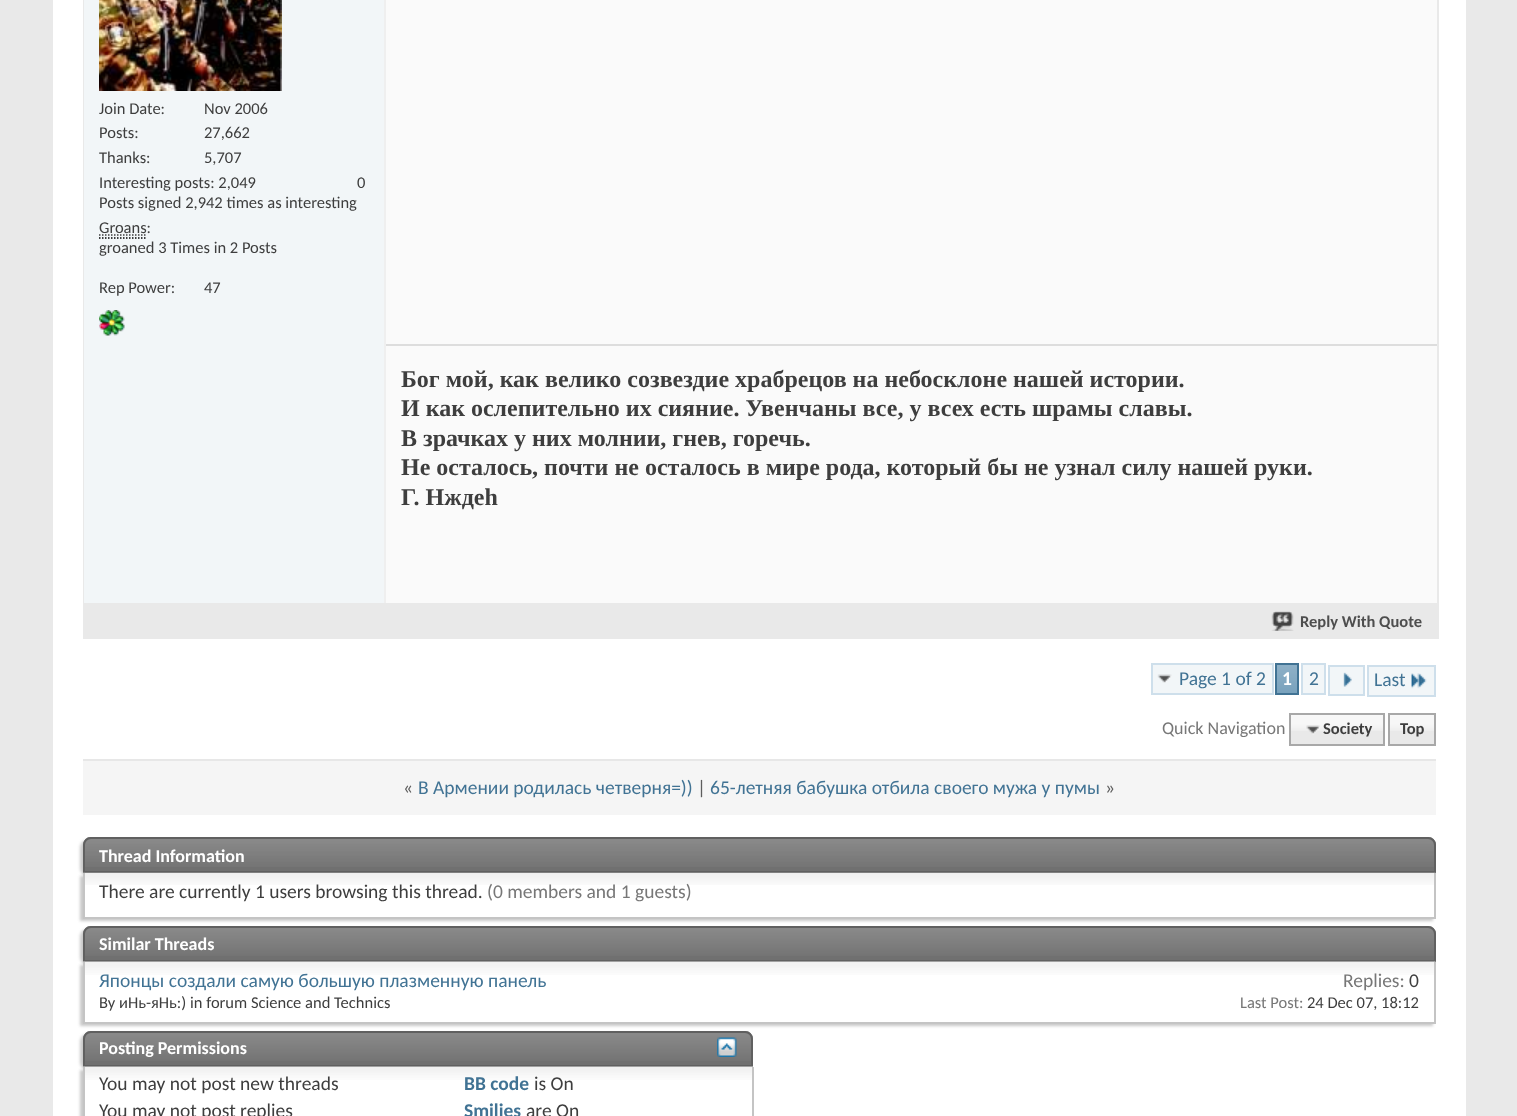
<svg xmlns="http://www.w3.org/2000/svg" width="1517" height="1116">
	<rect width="100%" height="100%" fill="#E9E9E9" />
	<rect x="53" y="0" width="1413" height="1116" fill="#FFFFFF" />
	<rect x="84" y="-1" width="1354" height="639" fill="none" stroke="#E9E9E9" stroke-width="2" />
	<rect x="84" y="0" width="300" height="603" fill="#F2F6F8" />
	<image x="99" y="0" width="183" height="91" href="assets/img1.png" />
	<g font-family="Carlito" font-size="16.5" fill="#3E3E3E">
		<text x="99" y="114">Join Date:</text>
		<text x="204" y="114">Nov 2006</text>
		<text x="99" y="138">Posts:</text>
		<text x="204" y="138">27,662</text>
		<text x="99" y="163">Thanks:</text>
		<text x="204" y="163">5,707</text>
		<text x="99" y="188">Interesting posts: 2,049</text>
		<text x="99" y="208">Posts signed 2,942 times as interesting</text>
		<text x="357" y="188">0</text>
		<text x="99" y="233">Groans:</text>
	</g>
	<path d="M99 238H147" fill="none" stroke="#000000" stroke-width="1.5" stroke-dasharray="1.5 1.5" />
	<path d="M99 235H146.5" fill="none" stroke="#3E3E3E" stroke-width="1.5" stroke-dasharray="1.5 1.5" />
	<g font-family="Carlito" font-size="16.5" fill="#3E3E3E">
		<text x="99" y="253">groaned 3 Times in 2 Posts</text>
		<text x="99" y="293">Rep Power:</text>
		<text x="204" y="293">47</text>
	</g>
	<image x="99" y="310" width="26" height="26" href="assets/img2.png" />
	<rect x="386" y="0" width="1051" height="603" fill="#FAFAFA" />
	<rect x="384" y="0" width="2" height="603" fill="#EFEFEF" />
	<rect x="386" y="344" width="1051" height="2" fill="#DDDDDD" />
	<g font-family="Liberation Serif" font-size="24" font-weight="700" fill="#3E3E3E">
		<text x="401" y="387">Бог мой, как велико созвездие храбрецов на небосклоне нашей истории.</text>
		<text x="401" y="416">И как ослепительно их сияние. Увенчаны все, у всех есть шрамы славы.</text>
		<text x="401" y="446">В зрачках у них молнии, гнев, горечь.</text>
		<text x="401" y="475">Не осталось, почти не осталось в мире рода, который бы не узнал силу нашей руки.</text>
		<text x="401" y="505">Г. Нждеh</text>
	</g>
	<rect x="85" y="603" width="1352" height="34" fill="#E9E9E9" />
	<image x="1271" y="611" width="23" height="20" href="assets/img3.png" />
	<text x="1300" y="627" font-family="Carlito" font-size="16.5" font-weight="700" fill="#4E4E4E">Reply With Quote</text>
	<rect x="1153" y="665" width="119" height="28" fill="#F2F6F8" />
	<image x="1157" y="674" width="15" height="9" href="assets/img4.png" />
	<rect x="1152" y="664" width="121" height="30" fill="none" stroke="#CEDFEB" stroke-width="2" />
	<text x="1179" y="685" font-family="Carlito" font-size="19.5" fill="#417394">Page 1 of 2</text>
	<rect x="1277" y="665" width="20" height="28" fill="#759FBB" />
	<image x="1277" y="665" width="20" height="28" href="assets/img5.png" />
	<rect x="1276" y="664" width="22" height="30" fill="none" stroke="#417394" stroke-width="2" />
	<text x="1282" y="685" font-family="Carlito" font-size="19.5" font-weight="700" fill="#FFFFFF">1</text>
	<rect x="1302" y="664" width="23" height="30" fill="#F2F6F8" stroke="#CEDFEB" stroke-width="2" />
	<text x="1309" y="685" font-family="Carlito" font-size="19.5" fill="#417394">2</text>
	<rect x="1329" y="666" width="35" height="29" fill="#F2F6F8" stroke="#CEDFEB" stroke-width="2" />
	<image x="1343" y="672" width="9" height="15" href="assets/img6.png" />
	<rect x="1369" y="667" width="65" height="28" fill="#F2F6F8" />
	<text x="1374" y="686" font-family="Carlito" font-size="19.5" fill="#417394">Last</text>
	<rect x="1367" y="665" width="69" height="2" fill="#CEDFEB" />
	<rect x="1367" y="695" width="39" height="2" fill="#CEDFEB" />
	<rect x="1367" y="665" width="2" height="31" fill="#CEDFEB" />
	<rect x="1434" y="665" width="2" height="31" fill="#CEDFEB" />
	<rect x="1406" y="695" width="30" height="2" fill="#CEDFEB" />
	<image x="1411" y="673" width="16" height="16" href="assets/img7.png" />
	<text x="1162" y="734" font-family="Carlito" font-size="18" fill="#777777">Quick Navigation</text>
	<rect x="1291" y="715" width="92" height="29" fill="#E9E9E9" />
	<image x="1291" y="715" width="92" height="16" href="assets/img8.png" />
	<rect x="1390" y="715" width="44" height="29" fill="#E9E9E9" />
	<image x="1390" y="715" width="44" height="16" href="assets/img9.png" />
	<rect x="1290" y="714" width="94" height="31" fill="none" stroke="#A8A8A8" stroke-width="2" />
	<image x="1306" y="725" width="14" height="10" href="assets/img10.png" />
	<text x="1323" y="734" font-family="Carlito" font-size="16.5" font-weight="700" fill="#3E3E3E">Society</text>
	<rect x="1389" y="714" width="46" height="31" fill="none" stroke="#A8A8A8" stroke-width="2" />
	<text x="1400" y="734" font-family="Carlito" font-size="16.5" font-weight="700" fill="#3E3E3E">Top</text>
	<rect x="83" y="761" width="1353" height="54" fill="#F5F5F5" />
	<rect x="83" y="759" width="1353" height="2" fill="#E7E7E7" />
	<text x="403" y="794" font-family="Carlito" font-size="19.5" fill="#5D5D5D">«</text>
	<text x="418" y="794" font-family="Carlito" font-size="19.5" fill="#417394">В Армении родилась четверня=))</text>
	<text x="697" y="794" font-family="Carlito" font-size="19.5" fill="#5D5D5D">|</text>
	<text x="710" y="794" font-family="Carlito" font-size="19.5" fill="#417394">65-летняя бабушка отбила своего мужа у пумы</text>
	<text x="1105" y="794" font-family="Carlito" font-size="19.5" fill="#5D5D5D">»</text>
	<rect x="80" y="840" width="1353" height="36" rx="8" fill="#C8C8C8" filter="blur(1.5px)" />
	<path d="M91 837H1428C1432.5 837 1436 840.5 1436 845V873H83V845C83 840.5 86.5 837 91 837Z" fill="#707070" />
	<image x="83" y="838" width="1353" height="29" href="assets/img11.png" />
	<path d="M91 838H1428C1432 838 1435 841 1435 845V872H84V845C84 841 87 838 91 838Z" fill="none" stroke="#606060" stroke-width="2" />
	<text x="99" y="862" font-family="Carlito" font-size="18" font-weight="700" fill="#FFFFFF">Thread Information</text>
	<rect x="80" y="876" width="1353" height="45" fill="#C8C8C8" filter="blur(1.5px)" />
	<rect x="85" y="873" width="1349" height="44" fill="#FFFFFF" />
	<image x="83" y="872" width="1353" height="13" href="assets/img12.png" />
	<rect x="1434" y="873" width="2" height="45" fill="#C4C4C4" />
	<rect x="83" y="917" width="1353" height="2" fill="#C4C4C4" />
	<rect x="83" y="873" width="2" height="45" fill="#C4C4C4" />
	<text x="99" y="898" font-family="Carlito" font-size="19.5" fill="#3E3E3E">There are currently 1 users browsing this thread.</text>
	<text x="487" y="898" font-family="Carlito" font-size="19.5" fill="#777777">(0 members and 1 guests)</text>
	<rect x="80" y="929" width="1353" height="36" rx="8" fill="#C8C8C8" filter="blur(1.5px)" />
	<path d="M91 926H1428C1432.5 926 1436 929.5 1436 934V962H83V934C83 929.5 86.5 926 91 926Z" fill="#707070" />
	<image x="83" y="926" width="1353" height="30" href="assets/img13.png" />
	<path d="M91 927H1428C1432 927 1435 930 1435 934V961H84V934C84 930 87 927 91 927Z" fill="none" stroke="#606060" stroke-width="2" />
	<text x="99" y="950" font-family="Carlito" font-size="18" font-weight="700" fill="#FFFFFF">Similar Threads</text>
	<rect x="80" y="965" width="1353" height="61" fill="#C8C8C8" filter="blur(1.5px)" />
	<rect x="85" y="962" width="1349" height="60" fill="#FFFFFF" />
	<image x="83" y="961" width="1353" height="14" href="assets/img14.png" />
	<rect x="1434" y="962" width="2" height="61" fill="#C4C4C4" />
	<rect x="83" y="1022" width="1353" height="2" fill="#C4C4C4" />
	<rect x="83" y="962" width="2" height="61" fill="#C4C4C4" />
	<text x="99" y="987" font-family="Carlito" font-size="19.5" fill="#417394">Японцы создали самую большую плазменную панель</text>
	<text x="99" y="1008" font-family="Carlito" font-size="16.5" fill="#3E3E3E">By иНь-яНь:) in forum Science and Technics</text>
	<text x="1343" y="987" font-family="Carlito" font-size="19.5" fill="#777777">Replies:</text>
	<text x="1409" y="987" font-family="Carlito" font-size="19.5" fill="#3E3E3E">0</text>
	<text x="1240" y="1008" font-family="Carlito" font-size="16.5" fill="#777777">Last Post:</text>
	<text x="1307" y="1008" font-family="Carlito" font-size="16.5" fill="#3E3E3E">24 Dec 07, 18:12</text>
	<rect x="80" y="1034" width="670" height="36" rx="8" fill="#C8C8C8" filter="blur(1.5px)" />
	<path d="M91 1031H745C749.5 1031 753 1034.5 753 1039V1067H83V1039C83 1034.5 86.5 1031 91 1031Z" fill="#707070" />
	<image x="83" y="1031" width="670" height="30" href="assets/img15.png" />
	<path d="M91 1032H745C749 1032 752 1035 752 1039V1066H84V1039C84 1035 87 1032 91 1032Z" fill="none" stroke="#606060" stroke-width="2" />
	<text x="99" y="1054" font-family="Carlito" font-size="18" font-weight="700" fill="#FFFFFF">Posting Permissions</text>
	<image x="717" y="1037" width="20" height="20" href="assets/img16.png" />
	<rect x="80" y="1070" width="670" height="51" fill="#C8C8C8" filter="blur(1.5px)" />
	<rect x="85" y="1067" width="667" height="49" fill="#FFFFFF" />
	<image x="83" y="1066" width="670" height="14" href="assets/img17.png" />
	<rect x="752" y="1067" width="2" height="49" fill="#C4C4C4" />
	<rect x="83" y="1067" width="2" height="49" fill="#C4C4C4" />
	<g font-family="Carlito" font-size="19.5" fill="#3E3E3E">
		<text x="99" y="1090">You may not post new threads</text>
		<text x="99" y="1117">You may not post replies</text>
	</g>
	<text x="464" y="1090" font-family="Carlito" font-size="19.5" font-weight="700" fill="#417394">BB code</text>
	<text x="534" y="1090" font-family="Carlito" font-size="19.5" fill="#3E3E3E">is On</text>
	<text x="464" y="1117" font-family="Carlito" font-size="19.5" font-weight="700" fill="#417394">Smilies</text>
	<text x="526" y="1117" font-family="Carlito" font-size="19.5" fill="#3E3E3E">are On</text>
</svg>
